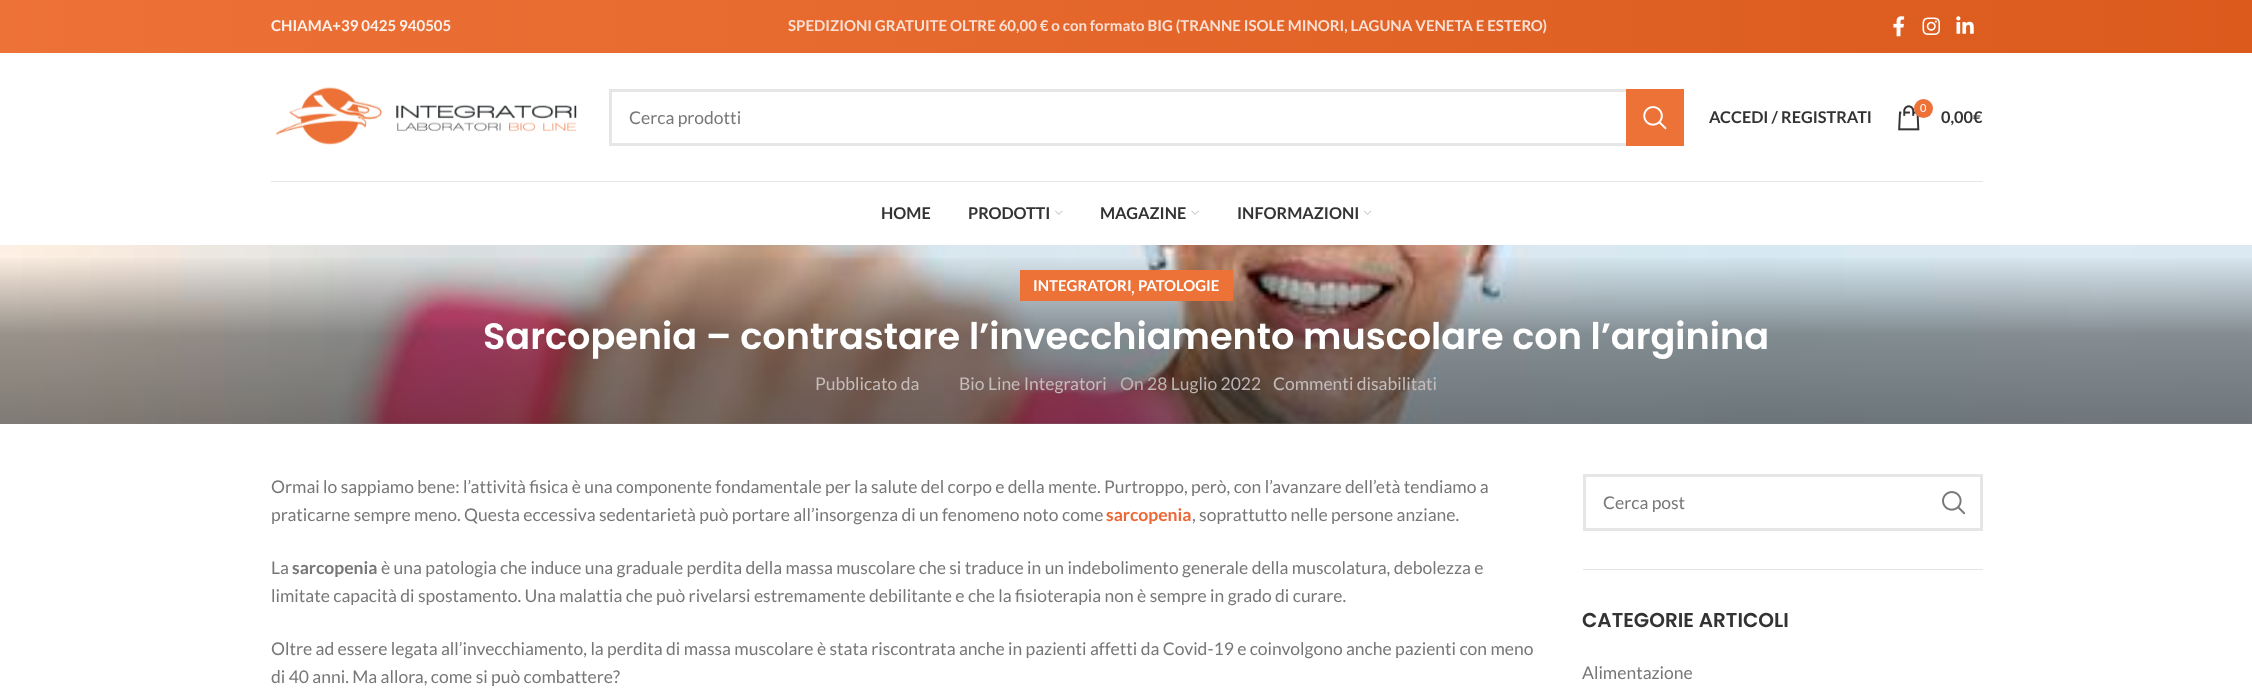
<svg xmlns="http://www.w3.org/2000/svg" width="2252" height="700">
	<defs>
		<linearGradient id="g1" gradientUnits="userSpaceOnUse" x1="0" y1="26" x2="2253" y2="26"><stop offset="0" stop-color="#ED7238" /><stop offset="1" stop-color="#DB5A1C" /></linearGradient>
		<linearGradient id="g2" gradientUnits="userSpaceOnUse" x1="1126" y1="245" x2="1126" y2="424"><stop offset="0.05" stop-color="#000000" stop-opacity="0" /><stop offset="0.5" stop-color="#000000" stop-opacity="0.4" /><stop offset="1" stop-color="#000000" stop-opacity="0.5" /></linearGradient>
	</defs>
	<rect width="100%" height="100%" fill="#FFFFFF" />
	<rect x="0" y="0" width="2252" height="53" fill="url(#g1)" />
	<text x="271" y="31" font-family="Lato" font-size="15" font-weight="700" fill="#FDF1EB">CHIAMA+39 0425 940505</text>
	<text x="788" y="31" font-family="Lato" font-size="15" font-weight="700" fill="#FAE0D4">SPEDIZIONI GRATUITE OLTRE 60,00 € o con formato BIG (TRANNE ISOLE MINORI, LAGUNA VENETA E ESTERO)</text>
	<image x="1893" y="16" width="12" height="21" href="assets/img1.png" />
	<image x="1922" y="17" width="18" height="18" href="assets/img2.png" />
	<image x="1956" y="16" width="18" height="18" href="assets/img3.png" />
	<rect x="271" y="181" width="1712" height="1" fill="#E6E6E6" />
	<image x="276" y="87" width="301" height="58" href="assets/img4.png" />
	<rect x="610.5" y="90.5" width="1072" height="54" fill="none" stroke="#E6E6E6" stroke-width="3" />
	<text x="629" y="124" font-family="Lato" font-size="17.5" fill="#777777">Cerca prodotti</text>
	<rect x="1626" y="89" width="58" height="57" fill="#ED7238" />
	<image x="1643" y="106" width="24" height="24" href="assets/img5.png" />
	<text x="1709" y="123" font-family="Lato" font-size="16.25" font-weight="700" fill="#333333">ACCEDI / REGISTRATI</text>
	<image x="1898" y="105" width="22" height="26" href="assets/img6.png" />
	<circle cx="1923.5" cy="108.5" r="9.5" fill="#ED7238" />
	<text x="1920" y="112" font-family="Lato" font-size="11" fill="#FFFFFF">0</text>
	<g font-family="Lato" font-size="16.25" font-weight="700" fill="#333333">
		<text x="1941" y="123">0,00€</text>
		<text x="881" y="219">HOME</text>
		<text x="968" y="219">PRODOTTI</text>
	</g>
	<image x="1055" y="210" width="8" height="5" href="assets/img7.png" />
	<text x="1100" y="219" font-family="Lato" font-size="16.25" font-weight="700" fill="#333333">MAGAZINE</text>
	<image x="1191" y="210" width="8" height="5" href="assets/img8.png" />
	<text x="1237" y="219" font-family="Lato" font-size="16.25" font-weight="700" fill="#333333">INFORMAZIONI</text>
	<image x="1364" y="210" width="8" height="5" href="assets/img9.png" />
	<image x="0" y="245" width="2252" height="179" href="assets/img10.png" />
	<rect x="0" y="258" width="2252" height="166" fill="url(#g2)" />
	<rect x="1020" y="270" width="213" height="31" fill="#ED7238" />
	<g font-family="Lato" font-size="15" font-weight="700" fill="#FFFFFF">
		<text x="1033" y="291">INTEGRATORI</text>
		<text x="1138" y="291">PATOLOGIE</text>
	</g>
	<text x="1131" y="293" font-family="Lato" font-size="17.5" fill="#FFFFFF">,</text>
	<text x="483" y="349" font-family="Poppins" font-size="36.65" font-weight="600" fill="#FFFFFF">Sarcopenia – contrastare l’invecchiamento muscolare con l’arginina</text>
	<g font-family="Lato" font-size="17.5" fill="#C6BDBA">
		<text x="815" y="390">Pubblicato da</text>
		<text x="959" y="390">Bio Line Integratori</text>
	</g>
	<text x="1120" y="390" font-family="Lato" font-size="17.5" fill="#BDB3B1">On 28 Luglio 2022</text>
	<text x="1273" y="390" font-family="Lato" font-size="17.5" fill="#C6BDBA">Commenti disabilitati</text>
	<g font-family="Lato" font-size="17.5" fill="#777777">
		<text x="271" y="493">Ormai lo sappiamo bene: l’attività fisica è una componente fondamentale per la salute del corpo e della mente. Purtroppo, però, con l’avanzare dell’età tendiamo a</text>
		<text x="271" y="521">praticarne sempre meno. Questa eccessiva sedentarietà può portare all’insorgenza di un fenomeno noto come</text>
	</g>
	<text x="1106" y="521" font-family="Lato" font-size="17.5" font-weight="700" fill="#ED6736">sarcopenia</text>
	<g font-family="Lato" font-size="17.5" fill="#777777">
		<text x="1192" y="521">, soprattutto nelle persone anziane.</text>
		<text x="271" y="574">La</text>
	</g>
	<text x="292" y="574" font-family="Lato" font-size="17.5" font-weight="700" fill="#777777">sarcopenia</text>
	<g font-family="Lato" font-size="17.5" fill="#777777">
		<text x="381" y="574">è una patologia che induce una graduale perdita della massa muscolare che si traduce in un indebolimento generale della muscolatura, debolezza e</text>
		<text x="271" y="602">limitate capacità di spostamento. Una malattia che può rivelarsi estremamente debilitante e che la fisioterapia non è sempre in grado di curare.</text>
		<text x="271" y="655">Oltre ad essere legata all’invecchiamento, la perdita di massa muscolare è stata riscontrata anche in pazienti affetti da Covid-19 e coinvolgono anche pazienti con meno</text>
		<text x="271" y="683">di 40 anni. Ma allora, come si può combattere?</text>
	</g>
	<rect x="1583" y="569" width="400" height="1" fill="#E4E4E4" />
	<rect x="1584.5" y="475.5" width="397" height="54" fill="none" stroke="#E6E6E6" stroke-width="3" />
	<text x="1603" y="509" font-family="Lato" font-size="17.5" fill="#777777">Cerca post</text>
	<image x="1942" y="491" width="24" height="24" href="assets/img11.png" />
	<text x="1582" y="627" font-family="Poppins" font-size="20" font-weight="600" fill="#333333">CATEGORIE ARTICOLI</text>
	<text x="1582" y="679" font-family="Lato" font-size="17.5" fill="#777777">Alimentazione</text>
</svg>
